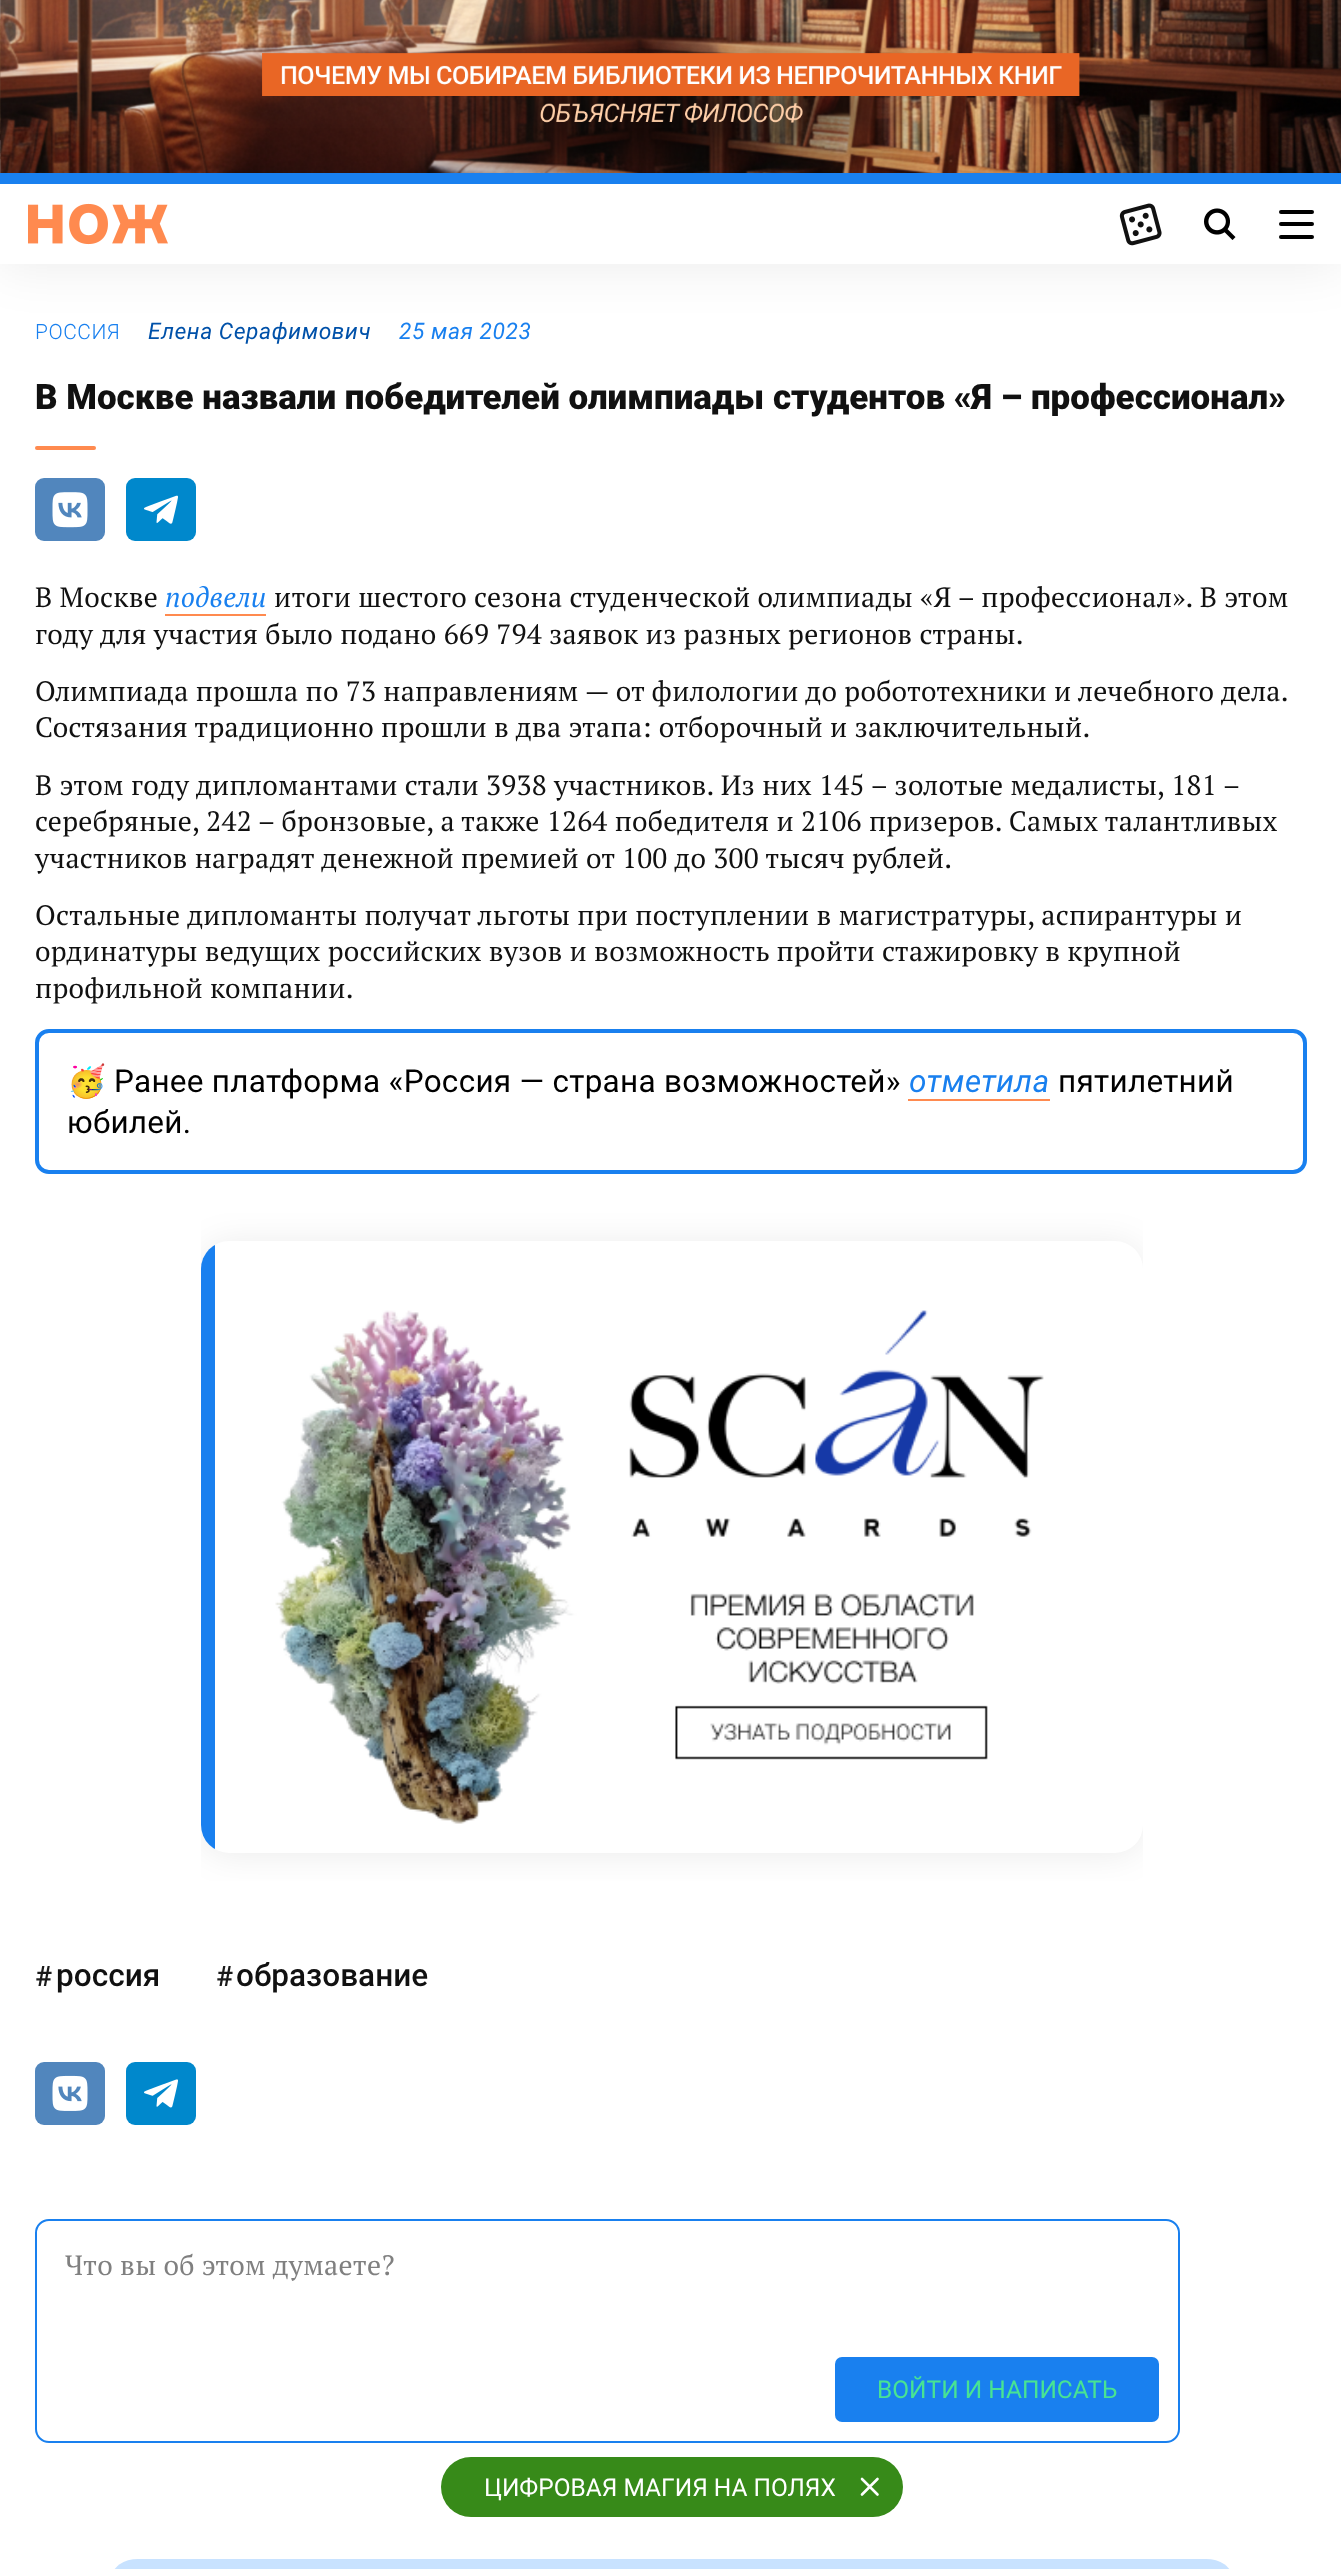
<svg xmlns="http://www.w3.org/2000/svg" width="1341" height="2569">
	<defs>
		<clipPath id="clip1"><rect x="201" y="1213" width="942" height="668" /></clipPath>
		<clipPath id="clip2"><rect x="201" y="1241" width="942" height="612" rx="28" /></clipPath>
	</defs>
	<rect width="100%" height="100%" fill="#FFFFFF" />
	<image x="0" y="0" width="1341" height="173" href="assets/img1.png" />
	<rect x="0" y="175" width="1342" height="91" fill="#000000" fill-opacity="0.08" filter="blur(26px)" />
	<rect x="0" y="184" width="1341" height="80" fill="#FFFFFF" />
	<rect x="0" y="173" width="1341" height="11" fill="#1980EF" />
	<image x="28" y="203" width="140" height="42" href="assets/img2.png" />
	<image x="1119" y="203" width="43" height="43" href="assets/img3.png" />
	<image x="1204" y="208" width="32" height="32" href="assets/img4.png" />
	<rect x="1279" y="210" width="35" height="4" rx="2" fill="#000000" />
	<rect x="1279" y="222" width="35" height="4" rx="2" fill="#000000" />
	<rect x="1279" y="235" width="35" height="4" rx="2" fill="#000000" />
	<text x="35" y="339" font-family="Roboto" font-size="21" font-weight="300" letter-spacing="0.5" fill="#1980EF">РОССИЯ</text>
	<text x="148" y="339" font-family="Roboto" font-size="22.75" font-style="italic" letter-spacing="0.5" fill="#0051A9">Елена Серафимович</text>
	<text x="399" y="339" font-family="Roboto" font-size="22.75" font-style="italic" letter-spacing="0.5" fill="#1980EF">25 мая 2023</text>
	<text x="35" y="409" font-family="Roboto" font-size="35" font-weight="900" fill="#111111">В Москве назвали победителей олимпиады студентов «Я – профессионал»</text>
	<rect x="35" y="446" width="61" height="4" rx="2" fill="#FF8A4F" />
	<rect x="35" y="478" width="70" height="63" rx="9" fill="#5186BD" />
	<image x="52" y="492" width="36" height="36" href="assets/img5.png" />
	<rect x="126" y="478" width="70" height="63" rx="9" fill="#0088CC" />
	<image x="144" y="495" width="34" height="29" href="assets/img6.png" />
	<text x="35" y="607" font-family="PT Serif" font-size="28" letter-spacing="0.28" fill="#111111">В Москве</text>
	<text x="165" y="607" font-family="PT Serif" font-size="28" font-style="italic" letter-spacing="0.28" fill="#1980EF">подвели</text>
	<rect x="165" y="614" width="101" height="2" fill="#FF8A4F" />
	<g font-family="PT Serif" font-size="28" letter-spacing="0.28" fill="#111111">
		<text x="274" y="607">итоги шестого сезона студенческой олимпиады «Я – профессионал». В этом</text>
		<text x="35" y="644">году для участия было подано 669 794 заявок из разных регионов страны.</text>
		<text x="35" y="701">Олимпиада прошла по 73 направлениям — от филологии до робототехники и лечебного дела.</text>
		<text x="35" y="737">Состязания традиционно прошли в два этапа: отборочный и заключительный.</text>
		<text x="35" y="795">В этом году дипломантами стали 3938 участников. Из них 145 – золотые медалисты, 181 –</text>
		<text x="35" y="831">серебряные, 242 – бронзовые, а также 1264 победителя и 2106 призеров. Самых талантливых</text>
		<text x="35" y="868">участников наградят денежной премией от 100 до 300 тысяч рублей.</text>
		<text x="35" y="925">Остальные дипломанты получат льготы при поступлении в магистратуры, аспирантуры и</text>
		<text x="35" y="961">ординатуры ведущих российских вузов и возможность пройти стажировку в крупной</text>
		<text x="35" y="998">профильной компании.</text>
	</g>
	<rect x="37" y="1031" width="1268" height="141" rx="12" fill="none" stroke="#1980EF" stroke-width="4" />
	<text x="67" y="1092" font-family="Noto Color Emoji" font-size="31.5" letter-spacing="0.28" fill="#000000">🥳</text>
	<text x="114" y="1092" font-family="Roboto" font-size="31.5" letter-spacing="0.28" fill="#000000">Ранее платформа «Россия — страна возможностей»</text>
	<text x="909" y="1092" font-family="Roboto" font-size="31.5" font-style="italic" letter-spacing="0.28" fill="#1980EF">отметила</text>
	<rect x="908" y="1099" width="142" height="2" fill="#FF8A4F" />
	<g font-family="Roboto" font-size="31.5" letter-spacing="0.28" fill="#000000">
		<text x="1058" y="1092">пятилетний</text>
		<text x="67" y="1133">юбилей.</text>
	</g>
	<g clip-path="url(#clip1)">
		<rect x="201" y="1243" width="942" height="612" rx="28" fill="#000000" fill-opacity="0.08" filter="blur(17.5px)" />
	</g>
	<rect x="201" y="1241" width="942" height="612" rx="28" fill="#FFFFFF" />
	<g clip-path="url(#clip2)">
		<rect x="201" y="1244" width="14" height="606" fill="#1980EF" />
	</g>
	<image x="275" y="1310" width="769" height="514" href="assets/img7.png" />
	<text x="35" y="1986" font-family="Roboto" font-size="28" font-weight="500" fill="#1A1A1A">#</text>
	<text x="56" y="1986" font-family="Roboto" font-size="31.5" font-weight="500" fill="#111111">россия</text>
	<text x="216" y="1986" font-family="Roboto" font-size="28" font-weight="500" fill="#1A1A1A">#</text>
	<text x="236" y="1986" font-family="Roboto" font-size="31.5" font-weight="500" fill="#111111">образование</text>
	<rect x="35" y="2062" width="70" height="63" rx="9" fill="#5186BD" />
	<image x="52" y="2075" width="36" height="36" href="assets/img8.png" />
	<rect x="126" y="2062" width="70" height="63" rx="9" fill="#0088CC" />
	<image x="144" y="2079" width="34" height="29" href="assets/img9.png" />
	<rect x="36" y="2220" width="1143" height="222" rx="13" fill="none" stroke="#1980EF" stroke-width="2" />
	<text x="65" y="2275" font-family="PT Serif" font-size="28" letter-spacing="0.28" fill="#808080">Что вы об этом думаете?</text>
	<rect x="835" y="2357" width="324" height="65" rx="7" fill="#1980EF" />
	<text x="877" y="2398" font-family="Roboto" font-size="24.5" fill="#48E393">ВОЙТИ И НАПИСАТЬ</text>
	<rect x="112" y="2559" width="1120" height="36" rx="26" fill="#C8E2FF" />
	<rect x="441" y="2457" width="462" height="60" rx="30" fill="#378A19" />
	<text x="484" y="2496" font-family="Roboto" font-size="24.5" fill="#FFFFFF">ЦИФРОВАЯ МАГИЯ НА ПОЛЯХ</text>
	<path d="M877.5 2479L862 2494.5M862 2479L877.5 2494.5" fill="none" stroke="#FFFFFF" stroke-width="2.6" stroke-linecap="round" stroke-linejoin="round" />
</svg>
